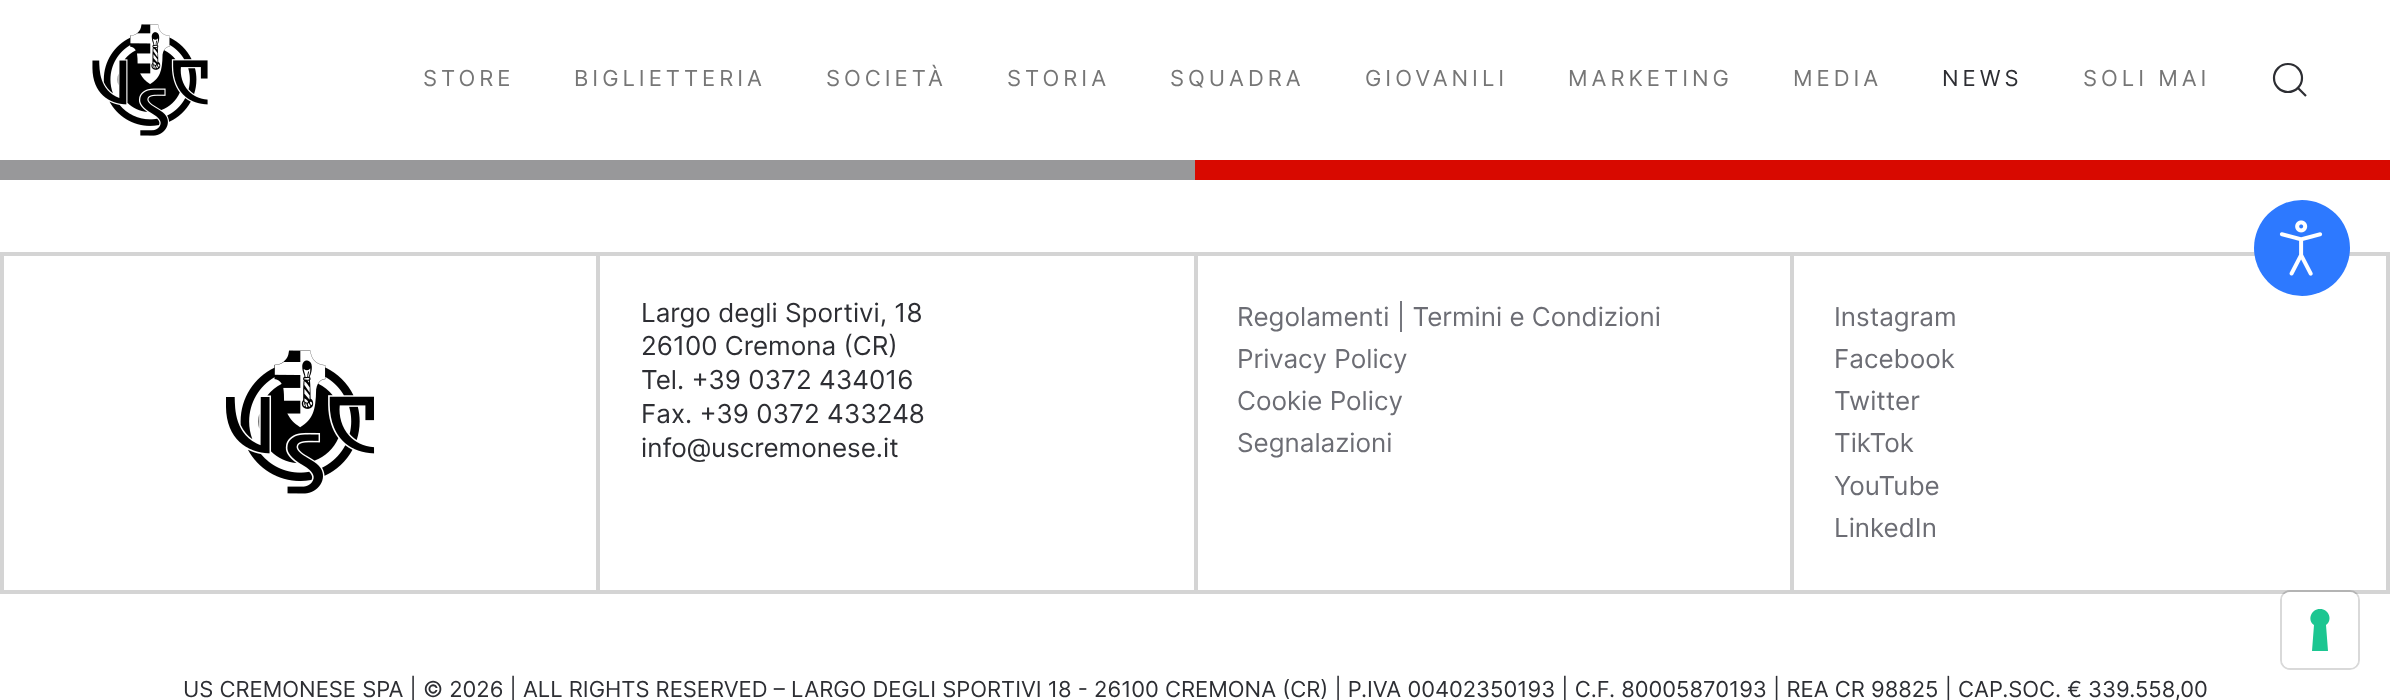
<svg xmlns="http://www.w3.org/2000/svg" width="2390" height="700">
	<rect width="100%" height="100%" fill="#FFFFFF" />
	<image x="0" y="160" width="2390" height="20" href="assets/img1.png" />
	<image x="92" y="24" width="116" height="112" href="assets/img2.png" />
	<g font-family="Inter" font-size="22" letter-spacing="4" fill="#767676">
		<text x="423" y="86">STORE</text>
		<text x="574" y="86">BIGLIETTERIA</text>
		<text x="826" y="86">SOCIETÀ</text>
		<text x="1007" y="86">STORIA</text>
		<text x="1170" y="86">SQUADRA</text>
		<text x="1365" y="86">GIOVANILI</text>
		<text x="1568" y="86">MARKETING</text>
		<text x="1793" y="86">MEDIA</text>
	</g>
	<text x="1942" y="86" font-family="Inter" font-size="22" letter-spacing="4" fill="#2D2E33">NEWS</text>
	<text x="2083" y="86" font-family="Inter" font-size="22" letter-spacing="4" fill="#767676">SOLI MAI</text>
	<circle cx="2288" cy="78" r="14" fill="none" stroke="#2D2E33" stroke-width="2.2" />
	<path d="M2298 88L2306 96Z" fill="none" stroke="#2D2E33" stroke-width="2.2" />
	<rect x="1" y="253" width="2388" height="340" fill="none" stroke="#D4D4D4" stroke-width="2" />
	<rect x="3" y="255" width="594" height="336" fill="none" stroke="#D4D4D4" stroke-width="2" />
	<image x="226" y="350" width="149" height="144" href="assets/img3.png" />
	<rect x="599" y="255" width="596" height="336" fill="none" stroke="#D4D4D4" stroke-width="2" />
	<g font-family="Inter" font-size="26" fill="#2D2E33">
		<text x="641" y="322">Largo degli Sportivi, 18</text>
		<text x="641" y="355">26100 Cremona (CR)</text>
		<text x="641" y="389">Tel. +39 0372 434016</text>
		<text x="641" y="423">Fax. +39 0372 433248</text>
		<text x="641" y="457">info@uscremonese.it</text>
	</g>
	<rect x="1197" y="255" width="594" height="336" fill="none" stroke="#D4D4D4" stroke-width="2" />
	<g font-family="Inter" font-size="26" fill="#6C6D74">
		<text x="1237" y="326">Regolamenti | Termini e Condizioni</text>
		<text x="1237" y="368">Privacy Policy</text>
		<text x="1237" y="410">Cookie Policy</text>
		<text x="1237" y="452">Segnalazioni</text>
	</g>
	<rect x="1793" y="255" width="594" height="336" fill="none" stroke="#D4D4D4" stroke-width="2" />
	<g font-family="Inter" font-size="26" fill="#6C6D74">
		<text x="1834" y="326">Instagram</text>
		<text x="1834" y="368">Facebook</text>
		<text x="1834" y="410">Twitter</text>
		<text x="1834" y="452">TikTok</text>
		<text x="1834" y="495">YouTube</text>
		<text x="1834" y="537">LinkedIn</text>
	</g>
	<text x="183" y="697" font-family="Inter" font-size="22" fill="#2D2E33">US CREMONESE SPA | © 2026 | ALL RIGHTS RESERVED – LARGO DEGLI SPORTIVI 18 - 26100 CREMONA (CR) | P.IVA 00402350193 | C.F. 80005870193 | REA CR 98825 | CAP.SOC. € 339.558,00</text>
	<circle cx="2302" cy="248" r="48" fill="#2D79FF" />
	<image x="2279" y="220" width="44" height="56" href="assets/img4.png" />
	<rect x="2281" y="591" width="78" height="78" rx="9" fill="none" stroke="#000000" stroke-opacity="0.15" stroke-width="2" />
	<rect x="2282" y="592" width="76" height="76" rx="8" fill="#FFFFFF" />
	<path d="M2320 609C2329 609 2333 620 2326 625L2328 651H2312L2314 625C2307 620 2311 609 2320 609Z" fill="#1CC691" fill-rule="evenodd" />
</svg>
